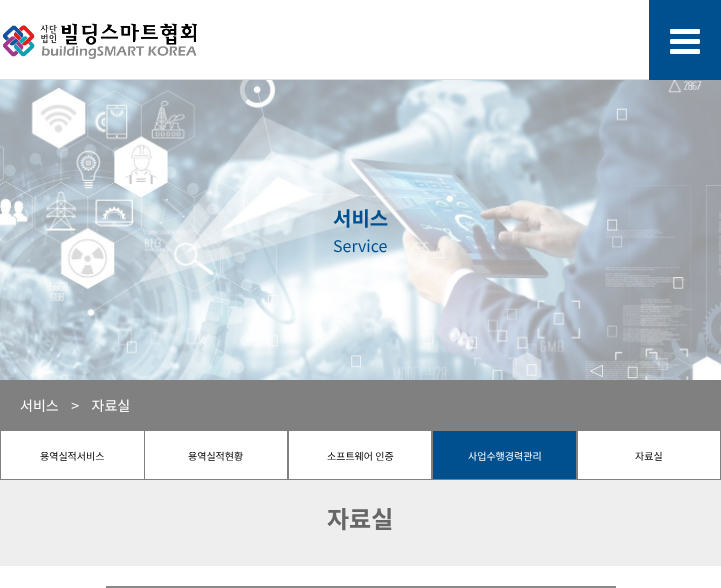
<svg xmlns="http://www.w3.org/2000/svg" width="721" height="588">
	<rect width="100%" height="100%" fill="#FFFFFF" />
	<rect x="0" y="79" width="649" height="1" fill="#DDDDDD" />
	<image x="2" y="23" width="195" height="36" href="assets/img1.png" />
	<rect x="649" y="0" width="72" height="80" fill="#00508F" />
	<image x="670" y="29" width="30" height="25" href="assets/img2.png" />
	<image x="0" y="80" width="721" height="300" href="assets/img3.png" />
	<text x="333" y="226" font-family="Noto Sans KR" font-size="20" font-weight="700" fill="#00508F">서비스</text>
	<text x="333" y="252" font-family="Noto Sans KR" font-size="16" fill="#00508F">Service</text>
	<rect x="0" y="380" width="721" height="50" fill="#808080" />
	<text x="20" y="411" font-family="Noto Sans KR" font-size="14" fill="#FFFFFF" xml:space="preserve">서비스    &gt;    자료실</text>
	<rect x="0" y="430" width="144" height="1" fill="#808080" />
	<rect x="0" y="479" width="144" height="1" fill="#808080" />
	<rect x="0" y="430" width="1" height="50" fill="#808080" />
	<text x="40" y="460" font-family="Noto Sans KR" font-size="10" fill="#000000">용역실적서비스</text>
	<rect x="144.5" y="430.5" width="143" height="49" fill="none" stroke="#808080" />
	<text x="188" y="460" font-family="Noto Sans KR" font-size="10" fill="#000000">용역실적현황</text>
	<rect x="288.5" y="430.5" width="143" height="49" fill="none" stroke="#808080" />
	<text x="327" y="460" font-family="Noto Sans KR" font-size="10" fill="#000000">소프트웨어 인증</text>
	<rect x="432.5" y="430.5" width="144" height="49" fill="#00508F" stroke="#808080" />
	<text x="468" y="460" font-family="Noto Sans KR" font-size="10" fill="#FFFFFF">사업수행경력관리</text>
	<rect x="577.5" y="430.5" width="143" height="49" fill="none" stroke="#808080" />
	<text x="635" y="460" font-family="Noto Sans KR" font-size="10" fill="#000000">자료실</text>
	<rect x="0" y="480" width="721" height="86" fill="#EEEEEE" />
	<text x="327" y="528" font-family="Noto Sans KR" font-size="24" font-weight="700" fill="#666666">자료실</text>
	<rect x="106" y="586" width="510" height="2" fill="#888888" />
</svg>
